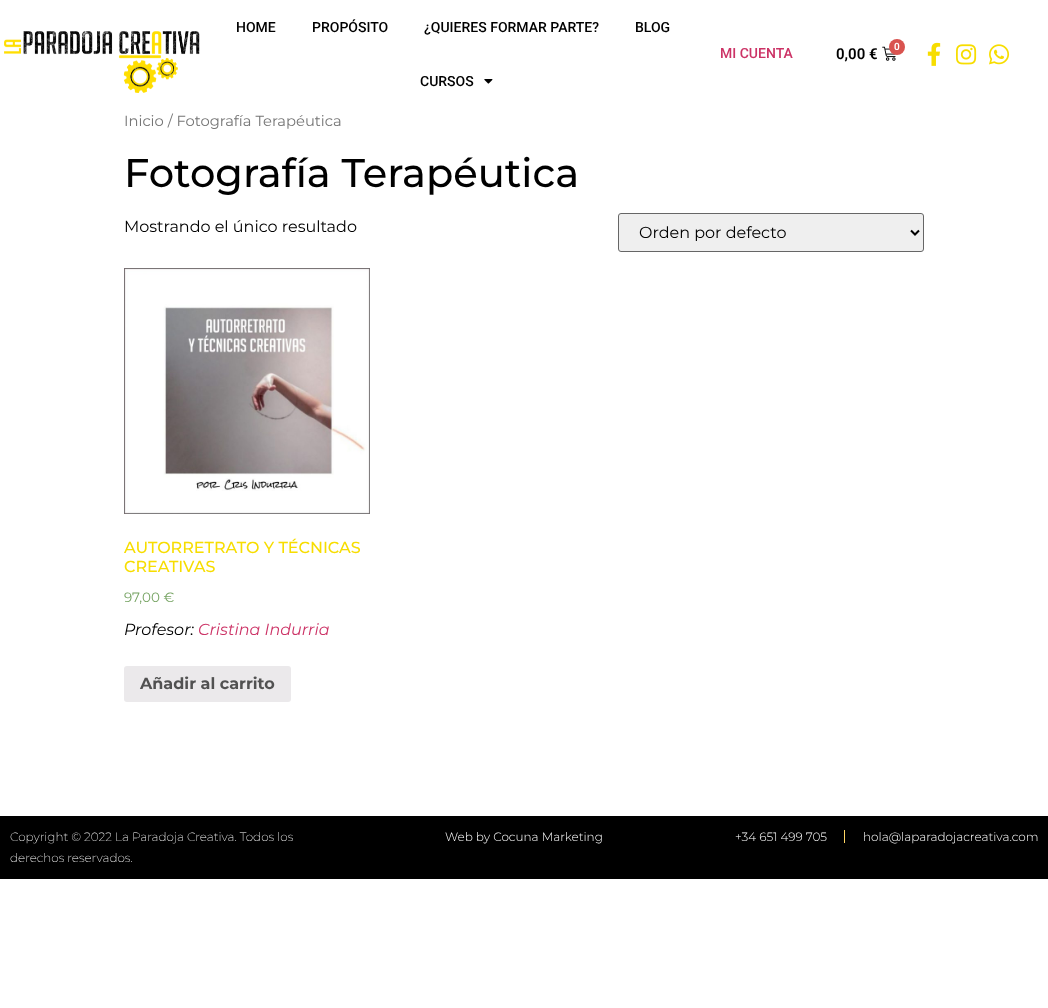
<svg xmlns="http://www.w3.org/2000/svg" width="1048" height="1008">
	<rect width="100%" height="100%" fill="#FFFFFF" />
	<image x="4" y="31" width="196" height="62" href="assets/img1.png" />
	<g font-family="Roboto" font-size="14" font-weight="500" fill="#000000">
		<text x="236" y="32">HOME</text>
		<text x="312" y="32">PROPÓSITO</text>
		<text x="424" y="32">¿QUIERES FORMAR PARTE?</text>
		<text x="635" y="32">BLOG</text>
		<text x="420" y="86">CURSOS</text>
	</g>
	<image x="484" y="79" width="9" height="5" href="assets/img2.png" />
	<text x="720" y="58" font-family="Roboto" font-size="14" font-weight="500" fill="#CC3366">MI CUENTA</text>
	<image x="882" y="46" width="14" height="15" href="assets/img3.png" />
	<circle cx="897" cy="47" r="8" fill="#D9534F" />
	<text x="894" y="50" font-family="Roboto" font-size="10" font-weight="600" fill="#FFFFFF">0</text>
	<text x="836" y="59" font-family="Roboto" font-size="15" font-weight="600" fill="#000000">0,00 €</text>
	<image x="927" y="42" width="14" height="24" href="assets/img4.png" />
	<image x="956" y="44" width="21" height="21" href="assets/img5.png" />
	<image x="989" y="44" width="21" height="21" href="assets/img6.png" />
	<text x="124" y="126" font-family="Montserrat" font-size="14.75" fill="#767676">Inicio / Fotografía Terapéutica</text>
	<text x="124" y="187" font-family="Montserrat" font-size="40" font-weight="500" fill="#000000">Fotografía Terapéutica</text>
	<text x="124" y="232" font-family="Montserrat" font-size="16" fill="#000000">Mostrando el único resultado</text>
	<rect x="618.5" y="213.5" width="305" height="38" rx="2.5" fill="#EFEFEF" stroke="#666666" />
	<path d="M911 230.5L915 234.5L919 230.5" fill="none" stroke="#000000" stroke-width="2" />
	<text x="639" y="238" font-family="Montserrat" font-size="16" fill="#000000">Orden por defecto</text>
	<image x="124" y="268" width="246" height="246" href="assets/img7.png" />
	<g font-family="Montserrat" font-size="16" font-weight="500" fill="#F7DD00">
		<text x="124" y="553">AUTORRETRATO Y TÉCNICAS</text>
		<text x="124" y="572">CREATIVAS</text>
	</g>
	<text x="124" y="602" font-family="Montserrat" font-size="13.5" fill="#77A464">97,00 €</text>
	<text x="124" y="635" font-family="Montserrat" font-size="16" font-style="italic" fill="#000000">Profesor:</text>
	<text x="198" y="635" font-family="Montserrat" font-size="16" font-style="italic" fill="#CC3366">Cristina Indurria</text>
	<rect x="124" y="666" width="167" height="36" rx="3" fill="#EBE9EB" />
	<text x="140" y="689" font-family="Montserrat" font-size="16" font-weight="700" fill="#515151">Añadir al carrito</text>
	<rect x="0" y="816" width="1048" height="63" fill="#000000" />
	<g font-family="Montserrat" font-size="12" font-weight="200" fill="#FFFFFF">
		<text x="10" y="841">Copyright © 2022 La Paradoja Creativa. Todos los</text>
		<text x="10" y="862">derechos reservados.</text>
	</g>
	<g font-family="Montserrat" font-size="12" font-weight="300" fill="#FFFFFF">
		<text x="445" y="841">Web by Cocuna Marketing</text>
		<text x="735" y="841">+34 651 499 705</text>
	</g>
	<rect x="844" y="830" width="1" height="13" fill="#FFD664" />
	<text x="863" y="841" font-family="Montserrat" font-size="12" font-weight="300" fill="#FFFFFF">hola@laparadojacreativa.com</text>
</svg>
